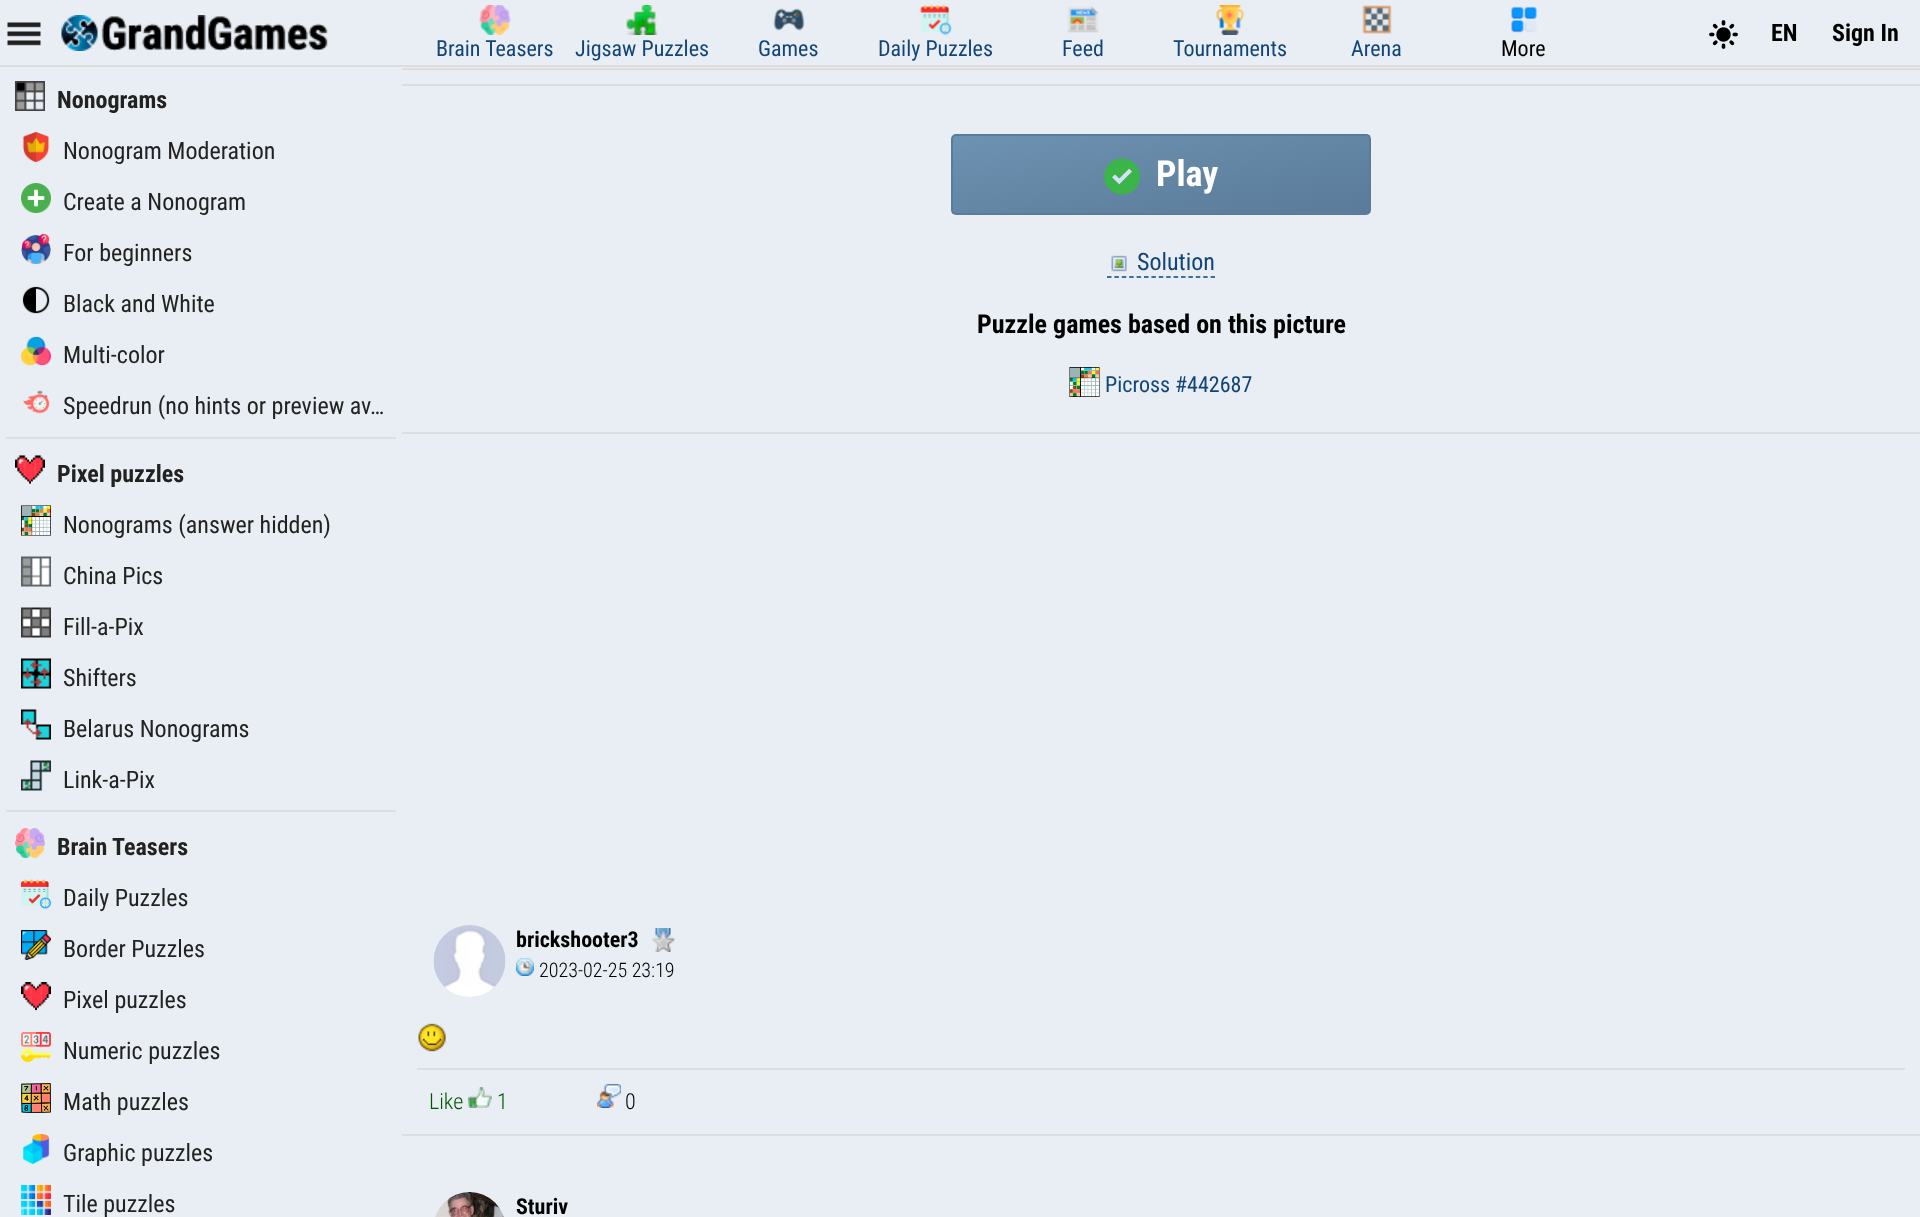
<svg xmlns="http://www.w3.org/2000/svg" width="1920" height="1217">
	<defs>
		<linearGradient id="g1" gradientUnits="userSpaceOnUse" x1="1147" y1="99" x2="1175" y2="249"><stop offset="0" stop-color="#6E92B2" /><stop offset="1" stop-color="#5A7B99" /></linearGradient>
		<clipPath id="clip1"><rect x="951" y="134" width="420" height="81" rx="5" /></clipPath>
		<linearGradient id="g2" gradientUnits="userSpaceOnUse" x1="730" y1="177" x2="758" y2="327"><stop offset="0" stop-color="#6E92B2" /><stop offset="1" stop-color="#5A7B99" /></linearGradient>
	</defs>
	<rect width="100%" height="100%" fill="#E8EEF3" />
	<rect x="0" y="65" width="1920" height="2" fill="#DDDDDD" />
	<image x="7" y="22" width="34" height="24" href="assets/img1.png" />
	<image x="61" y="15" width="267" height="36" href="assets/img2.png" />
	<image x="1709" y="20" width="29" height="29" href="assets/img3.png" />
	<g font-family="Roboto Condensed" font-size="24" font-weight="700" fill="#000000">
		<text x="1771" y="41">EN</text>
		<text x="1832" y="41">Sign In</text>
	</g>
	<image x="479" y="5" width="32" height="30" href="assets/img4.png" />
	<text x="436" y="56" font-family="Roboto Condensed" font-size="22" fill="#114477">Brain Teasers</text>
	<image x="626" y="5" width="32" height="30" href="assets/img5.png" />
	<text x="575" y="56" font-family="Roboto Condensed" font-size="22" fill="#114477">Jigsaw Puzzles</text>
	<image x="773" y="8" width="32" height="23" href="assets/img6.png" />
	<text x="758" y="56" font-family="Roboto Condensed" font-size="22" fill="#114477">Games</text>
	<image x="920" y="5" width="32" height="30" href="assets/img7.png" />
	<text x="878" y="56" font-family="Roboto Condensed" font-size="22" fill="#114477">Daily Puzzles</text>
	<image x="1067" y="6" width="32" height="27" href="assets/img8.png" />
	<text x="1062" y="56" font-family="Roboto Condensed" font-size="22" fill="#114477">Feed</text>
	<image x="1216" y="5" width="28" height="30" href="assets/img9.png" />
	<text x="1173" y="56" font-family="Roboto Condensed" font-size="22" fill="#114477">Tournaments</text>
	<image x="1362" y="5" width="30" height="29" href="assets/img10.png" />
	<text x="1351" y="56" font-family="Roboto Condensed" font-size="22" fill="#114477">Arena</text>
	<image x="1511" y="6" width="26" height="27" href="assets/img11.png" />
	<text x="1501" y="56" font-family="Roboto Condensed" font-size="22" fill="#000000">More</text>
	<image x="15" y="81" width="30" height="30" href="assets/img12.png" />
	<text x="57" y="108" font-family="Roboto Condensed" font-size="24" font-weight="700" fill="#222222">Nonograms</text>
	<image x="22" y="132" width="28" height="30" href="assets/img13.png" />
	<text x="63" y="159" font-family="Roboto Condensed" font-size="24" fill="#222222">Nonogram Moderation</text>
	<image x="21" y="183" width="30" height="30" href="assets/img14.png" />
	<text x="63" y="210" font-family="Roboto Condensed" font-size="24" fill="#222222">Create a Nonogram</text>
	<image x="21" y="234" width="30" height="30" href="assets/img15.png" />
	<text x="63" y="261" font-family="Roboto Condensed" font-size="24" fill="#222222">For beginners</text>
	<image x="22" y="286" width="28" height="28" href="assets/img16.png" />
	<text x="63" y="312" font-family="Roboto Condensed" font-size="24" fill="#222222">Black and White</text>
	<image x="21" y="336" width="30" height="30" href="assets/img17.png" />
	<text x="63" y="363" font-family="Roboto Condensed" font-size="24" fill="#222222">Multi-color</text>
	<image x="23" y="390" width="27" height="24" href="assets/img18.png" />
	<text x="63" y="414" font-family="Roboto Condensed" font-size="24" fill="#222222">Speedrun (no hints or preview av…</text>
	<rect x="6" y="437" width="390" height="2" fill="#D9E0E2" />
	<image x="15" y="455" width="30" height="29" href="assets/img19.png" />
	<text x="57" y="482" font-family="Roboto Condensed" font-size="24" font-weight="700" fill="#222222">Pixel puzzles</text>
	<image x="21" y="505" width="30" height="31" href="assets/img20.png" />
	<text x="63" y="533" font-family="Roboto Condensed" font-size="24" fill="#222222">Nonograms (answer hidden)</text>
	<image x="21" y="556" width="30" height="31" href="assets/img21.png" />
	<text x="63" y="584" font-family="Roboto Condensed" font-size="24" fill="#222222">China Pics</text>
	<image x="21" y="607" width="30" height="31" href="assets/img22.png" />
	<text x="63" y="635" font-family="Roboto Condensed" font-size="24" fill="#222222">Fill-a-Pix</text>
	<image x="21" y="658" width="30" height="31" href="assets/img23.png" />
	<text x="63" y="686" font-family="Roboto Condensed" font-size="24" fill="#222222">Shifters</text>
	<image x="21" y="709" width="30" height="31" href="assets/img24.png" />
	<text x="63" y="737" font-family="Roboto Condensed" font-size="24" fill="#222222">Belarus Nonograms</text>
	<image x="21" y="760" width="30" height="31" href="assets/img25.png" />
	<text x="63" y="788" font-family="Roboto Condensed" font-size="24" fill="#222222">Link-a-Pix</text>
	<rect x="6" y="810" width="390" height="2" fill="#D9E0E2" />
	<image x="15" y="828" width="30" height="30" href="assets/img26.png" />
	<text x="57" y="855" font-family="Roboto Condensed" font-size="24" font-weight="700" fill="#222222">Brain Teasers</text>
	<image x="21" y="879" width="30" height="30" href="assets/img27.png" />
	<text x="63" y="906" font-family="Roboto Condensed" font-size="24" fill="#222222">Daily Puzzles</text>
	<image x="21" y="930" width="30" height="30" href="assets/img28.png" />
	<text x="63" y="957" font-family="Roboto Condensed" font-size="24" fill="#222222">Border Puzzles</text>
	<image x="21" y="982" width="30" height="29" href="assets/img29.png" />
	<text x="63" y="1008" font-family="Roboto Condensed" font-size="24" fill="#222222">Pixel puzzles</text>
	<image x="21" y="1032" width="30" height="30" href="assets/img30.png" />
	<text x="63" y="1059" font-family="Roboto Condensed" font-size="24" fill="#222222">Numeric puzzles</text>
	<image x="21" y="1083" width="30" height="30" href="assets/img31.png" />
	<text x="63" y="1110" font-family="Roboto Condensed" font-size="24" fill="#222222">Math puzzles</text>
	<image x="22" y="1134" width="28" height="30" href="assets/img32.png" />
	<text x="63" y="1161" font-family="Roboto Condensed" font-size="24" fill="#222222">Graphic puzzles</text>
	<image x="21" y="1185" width="30" height="30" href="assets/img33.png" />
	<text x="63" y="1212" font-family="Roboto Condensed" font-size="24" fill="#222222">Tile puzzles</text>
	<rect x="402" y="84" width="1518" height="2" fill="#DDDDDD" />
	<rect x="402" y="68" width="1518" height="2" fill="#DDDDDD" />
	<rect x="402" y="432" width="1518" height="2" fill="#DDDDDD" />
	<rect x="953" y="135" width="417" height="78" fill="url(#g1)" />
	<g clip-path="url(#clip1)">
		<rect x="951" y="213" width="2" height="1" fill="url(#g2)" />
	</g>
	<rect x="952" y="135" width="418" height="79" rx="4" fill="none" stroke="#5A7B99" stroke-width="2" />
	<image x="1104" y="158" width="36" height="37" href="assets/img34.png" />
	<text x="1156" y="186" font-family="Roboto Condensed" font-size="36" font-weight="700" fill="#FFFFFF">Play</text>
	<path d="M1107 277H1215" fill="none" stroke="#114477" stroke-width="1.5" stroke-dasharray="4.5 2.9" />
	<image x="1111" y="255" width="16" height="17" href="assets/img35.png" />
	<text x="1137" y="270" font-family="Roboto Condensed" font-size="24" fill="#114477">Solution</text>
	<text x="977" y="333" font-family="Roboto Condensed" font-size="26" font-weight="700" fill="#000000">Puzzle games based on this picture</text>
	<image x="1069" y="367" width="31" height="30" href="assets/img36.png" />
	<text x="1105" y="392" font-family="Roboto Condensed" font-size="22" fill="#114477">Picross #442687</text>
	<rect x="402" y="1134" width="1518" height="2" fill="#DDDDDD" />
	<image x="433" y="925" width="73" height="72" href="assets/img37.png" />
	<text x="516" y="947" font-family="Roboto Condensed" font-size="22" font-weight="700" fill="#000000">brickshooter3</text>
	<image x="652" y="928" width="23" height="24" href="assets/img38.png" />
	<image x="516" y="958" width="18" height="18" href="assets/img39.png" />
	<text x="539" y="977" font-family="Roboto Condensed" font-size="20" font-weight="300" fill="#000000">2023-02-25 23:19</text>
	<image x="418" y="1023" width="28" height="29" href="assets/img40.png" />
	<rect x="417" y="1068" width="1488" height="2" fill="#D9E0E2" />
	<text x="429" y="1109" font-family="Roboto Condensed" font-size="22" font-weight="300" fill="#005500">Like</text>
	<image x="468" y="1087" width="24" height="21" href="assets/img41.png" />
	<text x="497" y="1109" font-family="Roboto Condensed" font-size="22" font-weight="300" fill="#005500">1</text>
	<image x="597" y="1084" width="24" height="24" href="assets/img42.png" />
	<text x="625" y="1109" font-family="Roboto Condensed" font-size="22" font-weight="300" fill="#000000">0</text>
	<image x="435" y="1192" width="69" height="25" href="assets/img43.png" />
	<text x="516" y="1214" font-family="Roboto Condensed" font-size="22" font-weight="700" fill="#000000">Sturiv</text>
</svg>
